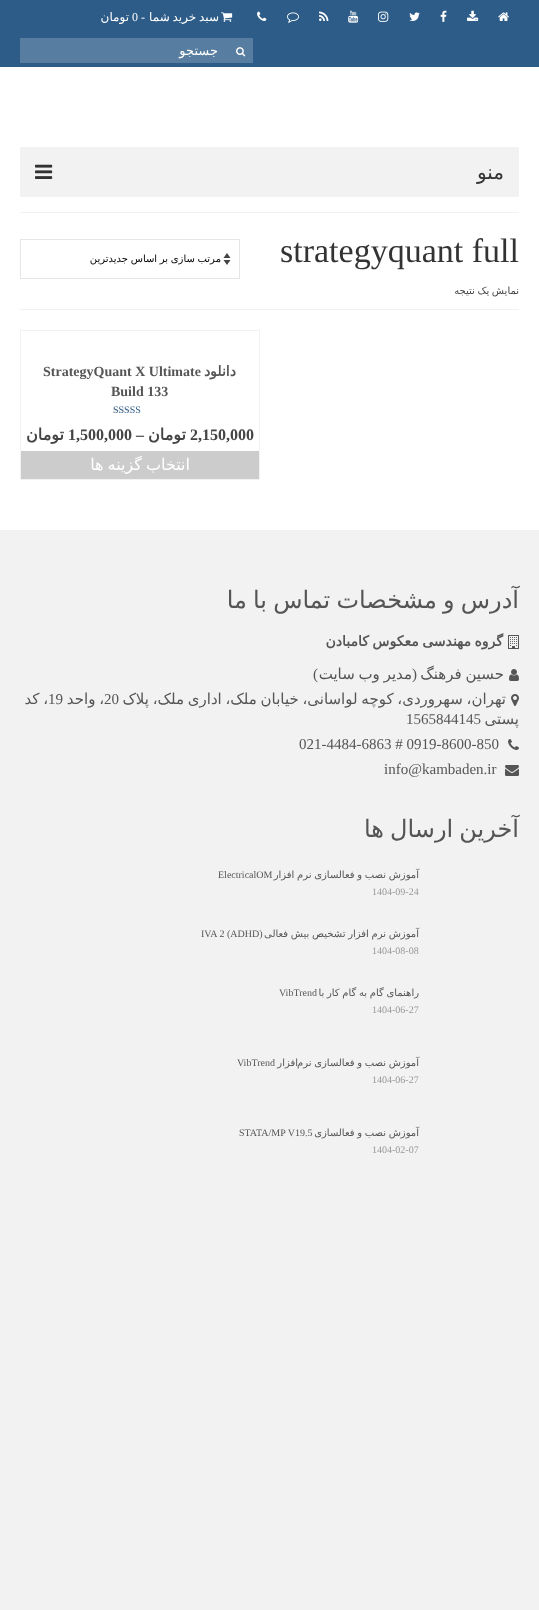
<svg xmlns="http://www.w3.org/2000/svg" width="539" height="1610">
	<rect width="100%" height="100%" fill="#FFFFFF" />
	<rect x="0" y="0" width="539" height="67" fill="#2D5C88" />
	<image x="498" y="12" width="11" height="9" href="assets/img1.png" />
	<image x="467" y="10" width="12" height="11" href="assets/img2.png" />
	<image x="440" y="10" width="7" height="12" href="assets/img3.png" />
	<image x="409" y="12" width="11" height="9" href="assets/img4.png" />
	<image x="378" y="11" width="11" height="11" href="assets/img5.png" />
	<image x="348" y="10" width="11" height="13" href="assets/img6.png" />
	<image x="319" y="11" width="10" height="10" href="assets/img7.png" />
	<image x="287" y="12" width="12" height="11" href="assets/img8.png" />
	<image x="257" y="11" width="10" height="10" href="assets/img9.png" />
	<image x="221" y="12" width="12" height="10" href="assets/img10.png" />
	<text x="219" y="21" word-spacing="-1" font-family="DejaVu Sans" font-size="12" direction="rtl" fill="#FFFFFF">سبد خرید شما</text>
	<g font-family="Liberation Serif" font-size="12" fill="#FFFFFF">
		<text x="141" y="21">-</text>
		<text x="132" y="21">0</text>
	</g>
	<text x="129" y="21" font-family="DejaVu Sans" font-size="12" direction="rtl" fill="#FFFFFF">تومان</text>
	<rect x="20" y="38" width="233" height="25" fill="#577DA0" />
	<image x="236" y="47" width="10" height="10" href="assets/img11.png" />
	<text x="218" y="55" font-family="DejaVu Sans" font-size="13" direction="rtl" fill="#FFFFFF">جستجو</text>
	<rect x="20" y="147" width="499" height="50" fill="#F2F2F2" />
	<text x="504" y="179" font-family="DejaVu Sans" font-size="20" direction="rtl" fill="#333333">منو</text>
	<image x="35" y="164" width="18" height="15" href="assets/img12.png" />
	<rect x="20" y="212" width="499" height="1" fill="#F2F2F2" />
	<rect x="20" y="309" width="499" height="1" fill="#F2F2F2" />
	<text x="280" y="262" font-family="Liberation Serif" font-size="34" fill="#333333">strategyquant full</text>
	<path d="M223.5 258L227 253L230.5 258ZM230.5 260L227 265L223.5 260Z" fill="#444444" />
	<rect x="20.5" y="239.5" width="219" height="39" fill="none" stroke="#E6E6E6" />
	<text x="221" y="262" word-spacing="-0.5" font-family="DejaVu Sans" font-size="10" direction="rtl" fill="#000000">مرتب سازی بر اساس جدیدترین</text>
	<text x="519" y="294" word-spacing="-0.5" font-family="DejaVu Sans" font-size="10" direction="rtl" fill="#444444">نمایش یک نتیجه</text>
	<rect x="20.5" y="330.5" width="239" height="149" fill="none" stroke="#F2F2F2" />
	<text x="236" y="376" font-family="DejaVu Sans" font-size="14" font-weight="700" direction="rtl" fill="#555555">دانلود</text>
	<g font-family="Liberation Serif" font-size="14" font-weight="700" fill="#555555">
		<text x="43" y="376">StrategyQuant X Ultimate</text>
		<text x="111" y="396">Build 133</text>
	</g>
	<text x="113" y="413" font-family="Liberation Serif" font-size="10" fill="#DFDBDF">sssss</text>
	<text x="113" y="413" font-family="Liberation Serif" font-size="10" fill="#2D5C88">SSSSS</text>
	<text x="190" y="440" font-family="Liberation Serif" font-size="16" font-weight="700" fill="#444444">2,150,000</text>
	<text x="186" y="440" font-family="DejaVu Sans" font-size="16" font-weight="700" direction="rtl" fill="#444444">تومان</text>
	<g font-family="Liberation Serif" font-size="16" font-weight="700" fill="#444444">
		<text x="136" y="440">–</text>
		<text x="68" y="440">1,500,000</text>
	</g>
	<text x="64" y="440" font-family="DejaVu Sans" font-size="16" font-weight="700" direction="rtl" fill="#444444">تومان</text>
	<rect x="21" y="451" width="238" height="28" fill="#CCCCCC" />
	<text x="190" y="470" word-spacing="-1" font-family="DejaVu Sans" font-size="16" direction="rtl" fill="#FFFFFF">انتخاب گزینه ها</text>
	<rect x="0" y="530" width="539" height="1080" fill="#F2F2F2" />
	<text x="519" y="608" word-spacing="-1.5" font-family="DejaVu Sans" font-size="24" direction="rtl" fill="#555555">آدرس و مشخصات تماس با ما</text>
	<image x="508" y="635" width="11" height="14" href="assets/img13.png" />
	<text x="503" y="646" word-spacing="-1" font-family="DejaVu Sans" font-size="14" font-weight="700" direction="rtl" fill="#555555">گروه مهندسی معکوس کامبادن</text>
	<image x="509" y="669" width="10" height="12" href="assets/img14.png" />
	<text x="504" y="679" word-spacing="-1" font-family="DejaVu Sans" font-size="15" direction="rtl" fill="#555555">حسین فرهنگ</text>
	<text x="417" y="679" font-family="Liberation Serif" font-size="15" direction="rtl" fill="#555555">(</text>
	<text x="412" y="679" word-spacing="-1" font-family="DejaVu Sans" font-size="15" direction="rtl" fill="#555555">مدیر وب سایت</text>
	<text x="318" y="679" font-family="Liberation Serif" font-size="15" direction="rtl" fill="#555555">)</text>
	<image x="511" y="694" width="8" height="12" href="assets/img15.png" />
	<text x="506" y="704" word-spacing="-1" font-family="DejaVu Sans" font-size="15" direction="rtl" fill="#555555">تهران، سهروردی، کوچه لواسانی، خیابان ملک، اداری ملک، پلاک</text>
	<text x="104" y="704" font-family="Liberation Serif" font-size="15" fill="#555555">20</text>
	<text x="104" y="704" word-spacing="-1" font-family="DejaVu Sans" font-size="15" direction="rtl" fill="#555555">، واحد</text>
	<text x="48" y="704" font-family="Liberation Serif" font-size="15" fill="#555555">19</text>
	<g font-family="DejaVu Sans" font-size="15" direction="rtl" fill="#555555">
		<text x="48" y="704" word-spacing="-1">، کد</text>
		<text x="519" y="724">پستی</text>
	</g>
	<text x="406" y="724" font-family="Liberation Serif" font-size="15" fill="#555555">1565844145</text>
	<image x="508" y="739" width="11" height="11" href="assets/img16.png" />
	<text x="299" y="749" font-family="Liberation Serif" font-size="15" fill="#555555">021-4484-6863 # 0919-8600-850</text>
	<image x="505" y="765" width="14" height="11" href="assets/img17.png" />
	<text x="384" y="774" font-family="Liberation Serif" font-size="15" fill="#555555">info@kambaden.ir</text>
	<text x="519" y="837" word-spacing="-1.5" font-family="DejaVu Sans" font-size="24" direction="rtl" fill="#555555">آخرین ارسال ها</text>
	<text x="419" y="878" word-spacing="-0.5" font-family="DejaVu Sans" font-size="10" direction="rtl" fill="#555555">آموزش نصب و فعالسازی نرم افزار</text>
	<text x="218" y="878" font-family="Liberation Serif" font-size="10" fill="#555555">ElectricalOM</text>
	<text x="372" y="895" font-family="Liberation Serif" font-size="10" fill="#999999">1404-09-24</text>
	<text x="419" y="937" word-spacing="-0.5" font-family="DejaVu Sans" font-size="10" direction="rtl" fill="#555555">آموزش نرم افزار تشخیص بیش فعالی</text>
	<text x="201" y="937" font-family="Liberation Serif" font-size="10" fill="#555555">IVA 2 (ADHD)</text>
	<text x="372" y="954" font-family="Liberation Serif" font-size="10" fill="#999999">1404-08-08</text>
	<text x="419" y="996" word-spacing="-0.5" font-family="DejaVu Sans" font-size="10" direction="rtl" fill="#555555">راهنمای گام به گام کار با</text>
	<text x="279" y="996" font-family="Liberation Serif" font-size="10" fill="#555555">VibTrend</text>
	<text x="372" y="1013" font-family="Liberation Serif" font-size="10" fill="#999999">1404-06-27</text>
	<g font-family="DejaVu Sans" font-size="10" direction="rtl" fill="#555555">
		<text x="419" y="1066" word-spacing="-0.5">آموزش نصب و فعالسازی نرم</text>
		<text x="298" y="1066">افزار</text>
	</g>
	<text x="237" y="1066" font-family="Liberation Serif" font-size="10" fill="#555555">VibTrend</text>
	<text x="372" y="1083" font-family="Liberation Serif" font-size="10" fill="#999999">1404-06-27</text>
	<text x="419" y="1136" word-spacing="-0.5" font-family="DejaVu Sans" font-size="10" direction="rtl" fill="#555555">آموزش نصب و فعالسازی</text>
	<text x="239" y="1136" font-family="Liberation Serif" font-size="10" fill="#555555">STATA/MP V19.5</text>
	<text x="372" y="1153" font-family="Liberation Serif" font-size="10" fill="#999999">1404-02-07</text>
</svg>
